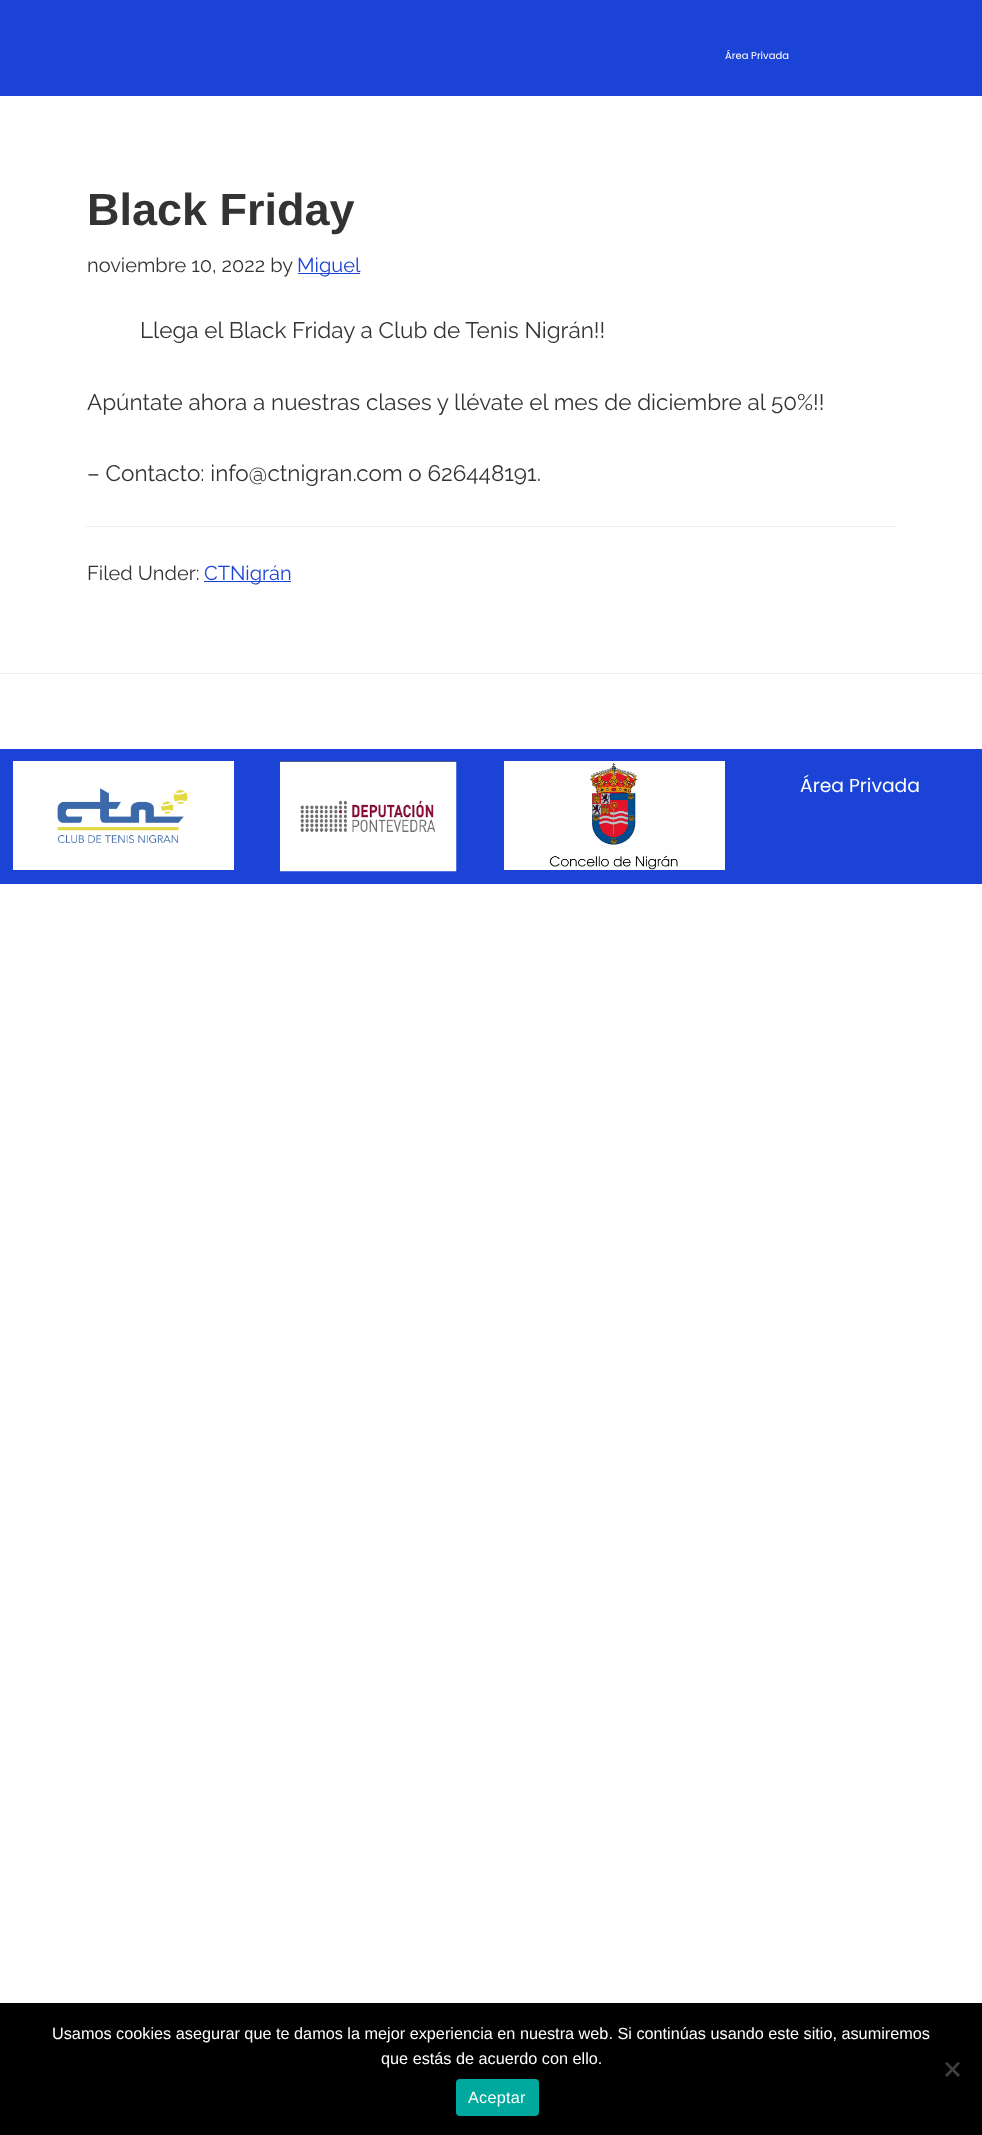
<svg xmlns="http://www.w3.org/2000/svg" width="982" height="2135">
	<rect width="100%" height="100%" fill="#FFFFFF" />
	<rect x="0" y="0" width="982" height="96" fill="#1B44D6" />
	<text x="725" y="59" font-family="Poppins" font-size="10" fill="#FFFFFF">Área Privada</text>
	<text x="87" y="225" font-family="Liberation Sans" font-size="45" font-weight="700" fill="#333333">Black Friday</text>
	<text x="87" y="272" font-family="Raleway" font-size="20" fill="#333333">noviembre 10, 2022 by</text>
	<rect x="298" y="273" width="62" height="1" fill="#1B44D6" />
	<text x="297" y="272" font-family="Raleway" font-size="20" fill="#1B44D6">Miguel</text>
	<g font-family="Raleway" font-size="22.5" fill="#333333">
		<text x="140" y="338">Llega el Black Friday a Club de Tenis Nigrán!!</text>
		<text x="87" y="410">Apúntate ahora a nuestras clases y llévate el mes de diciembre al 50%!!</text>
		<text x="87" y="481">– Contacto: info@ctnigran.com o 626448191.</text>
	</g>
	<rect x="86" y="526" width="810" height="1" fill="#EEEEEE" />
	<text x="87" y="580" font-family="Raleway" font-size="20" fill="#333333">Filed Under:</text>
	<rect x="204" y="581" width="87" height="1" fill="#1B44D6" />
	<text x="204" y="580" font-family="Raleway" font-size="20" fill="#1B44D6">CTNigrán</text>
	<rect x="0" y="673" width="982" height="1" fill="#EEEEEE" />
	<rect x="0" y="749" width="982" height="135" fill="#1B44D6" />
	<rect x="13" y="761" width="221" height="109" fill="#FFFFFF" />
	<image x="57" y="788" width="131" height="56" href="assets/img1.png" />
	<image x="280" y="761" width="177" height="111" href="assets/img2.png" />
	<rect x="504" y="761" width="221" height="109" fill="#FFFFFF" />
	<image x="549" y="763" width="129" height="107" href="assets/img3.png" />
	<text x="800" y="792" font-family="Poppins" font-size="18.75" fill="#FFFFFF">Área Privada</text>
	<rect x="0" y="2003" width="982" height="132" fill="#000000" />
	<g font-family="Liberation Sans" font-size="16.25" fill="#FFFFFF">
		<text x="52" y="2039">Usamos cookies asegurar que te damos la mejor experiencia en nuestra web. Si continúas usando este sitio, asumiremos</text>
		<text x="381" y="2064">que estás de acuerdo con ello.</text>
	</g>
	<path d="M958 2062L960 2063.5L947 2077L945 2075Z" fill="#404040" />
	<path d="M945 2063.5L947 2062L960 2075L958 2077Z" fill="#404040" />
	<rect x="456" y="2079" width="83" height="37" rx="4" fill="#00A99D" />
	<text x="468" y="2103" font-family="Liberation Sans" font-size="16.25" letter-spacing="0.25" fill="#FFFFFF">Aceptar</text>
</svg>
